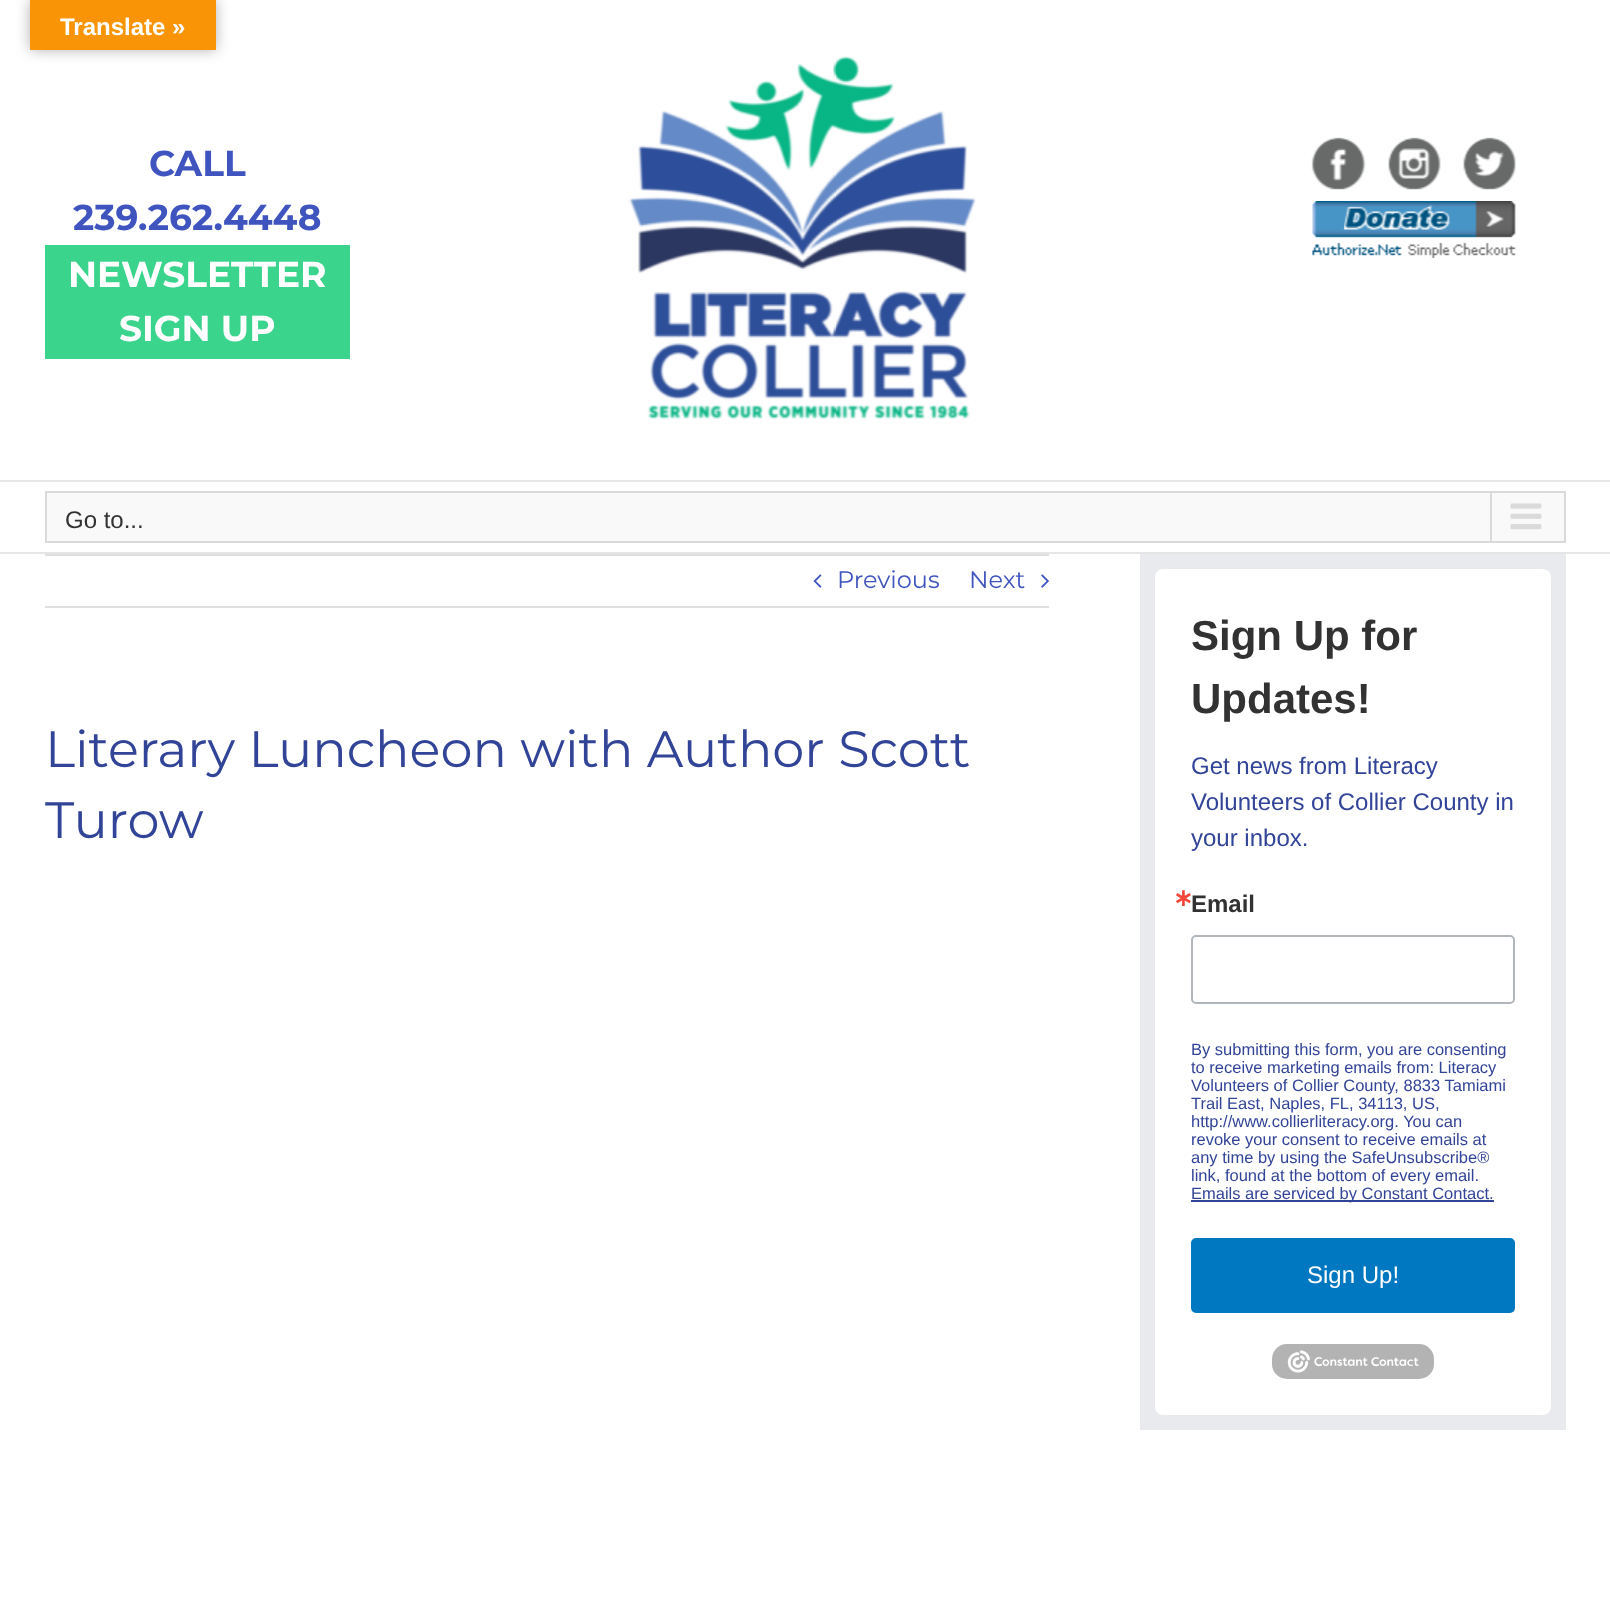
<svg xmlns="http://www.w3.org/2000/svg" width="1610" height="1597">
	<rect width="100%" height="100%" fill="#FFFFFF" />
	<rect x="30" y="0" width="186" height="50" fill="#000000" fill-opacity="0.3" filter="blur(7px)" />
	<rect x="30" y="0" width="186" height="50" fill="#F89406" />
	<text x="60" y="35" font-family="Liberation Sans" font-size="24" font-weight="700" fill="#FFFFFF">Translate »</text>
	<rect x="0" y="480" width="1610" height="2" fill="#E5E5E5" />
	<g font-family="Montserrat" font-size="36" font-weight="700" fill="#3F54BF">
		<text x="149" y="176">CALL</text>
		<text x="73" y="230">239.262.4448</text>
	</g>
	<rect x="45" y="245" width="305" height="114" fill="#3AD48C" />
	<g font-family="Montserrat" font-size="36" font-weight="700" fill="#FFFFFF">
		<text x="68" y="287">NEWSLETTER</text>
		<text x="119" y="341">SIGN UP</text>
	</g>
	<image x="629" y="56" width="347" height="363" href="assets/img1.png" />
	<image x="1311" y="137" width="55" height="53" href="assets/img2.png" />
	<image x="1388" y="137" width="53" height="53" href="assets/img3.png" />
	<image x="1463" y="137" width="53" height="53" href="assets/img4.png" />
	<image x="1312" y="201" width="204" height="57" href="assets/img5.png" />
	<rect x="0" y="552" width="1610" height="2" fill="#E5E5E5" />
	<rect x="46" y="492" width="1519" height="50" fill="#F9F9F9" stroke="#DADADA" stroke-width="2" />
	<text x="65" y="528" font-family="Liberation Sans" font-size="24" fill="#323232">Go to...</text>
	<rect x="1490" y="492" width="2" height="50" fill="#DADADA" />
	<image x="1510" y="503" width="32" height="27" href="assets/img6.png" />
	<rect x="45" y="554" width="1004" height="2" fill="#E0DEDE" />
	<rect x="45" y="606" width="1004" height="2" fill="#E0DEDE" />
	<image x="813" y="574" width="9" height="14" href="assets/img7.png" />
	<g font-family="Montserrat" font-size="24" fill="#3F54BF">
		<text x="837" y="588">Previous</text>
		<text x="969" y="588">Next</text>
	</g>
	<image x="1041" y="574" width="8" height="14" href="assets/img8.png" />
	<g font-family="Montserrat" font-size="51" fill="#324498">
		<text x="45" y="767">Literary Luncheon with Author Scott</text>
		<text x="45" y="838">Turow</text>
	</g>
	<rect x="1140" y="554" width="426" height="876" fill="#E9EAEE" />
	<rect x="1155" y="569" width="396" height="846" rx="8" fill="#FFFFFF" />
	<g font-family="Liberation Sans" font-size="42" font-weight="700" fill="#323232">
		<text x="1191" y="650">Sign Up for</text>
		<text x="1191" y="713">Updates!</text>
	</g>
	<g font-family="Liberation Sans" font-size="24" fill="#324498">
		<text x="1191" y="774">Get news from Literacy</text>
		<text x="1191" y="810">Volunteers of Collier County in</text>
		<text x="1191" y="846">your inbox.</text>
	</g>
	<text x="1173" y="906" font-family="DejaVu Sans" font-size="24" font-weight="700" fill="#F5463B">∗</text>
	<text x="1191" y="912" font-family="Liberation Sans" font-size="24" font-weight="700" fill="#323232">Email</text>
	<rect x="1192" y="936" width="322" height="67" rx="4" fill="none" stroke="#B0B6BB" stroke-width="2" />
	<g font-family="Liberation Sans" font-size="16.5" fill="#324498">
		<text x="1191" y="1055">By submitting this form, you are consenting</text>
		<text x="1191" y="1073">to receive marketing emails from: Literacy</text>
		<text x="1191" y="1091">Volunteers of Collier County, 8833 Tamiami</text>
		<text x="1191" y="1109">Trail East, Naples, FL, 34113, US,</text>
		<text x="1191" y="1127">http://www.collierliteracy.org. You can</text>
		<text x="1191" y="1145">revoke your consent to receive emails at</text>
		<text x="1191" y="1163">any time by using the SafeUnsubscribe®</text>
		<text x="1191" y="1181">link, found at the bottom of every email.</text>
	</g>
	<rect x="1191" y="1200" width="303" height="2" fill="#324498" />
	<text x="1191" y="1199" font-family="Liberation Sans" font-size="16.5" fill="#324498">Emails are serviced by Constant Contact.</text>
	<rect x="1192" y="1239" width="322" height="73" rx="4" fill="#0078C1" stroke="#0078C1" stroke-width="2" />
	<text x="1307" y="1283" font-family="Liberation Sans" font-size="24" fill="#FFFFFF">Sign Up!</text>
	<rect x="1272" y="1344" width="162" height="35" rx="15" fill="#B3B3B3" />
	<image x="1287" y="1350" width="132" height="23" href="assets/img9.png" />
</svg>
